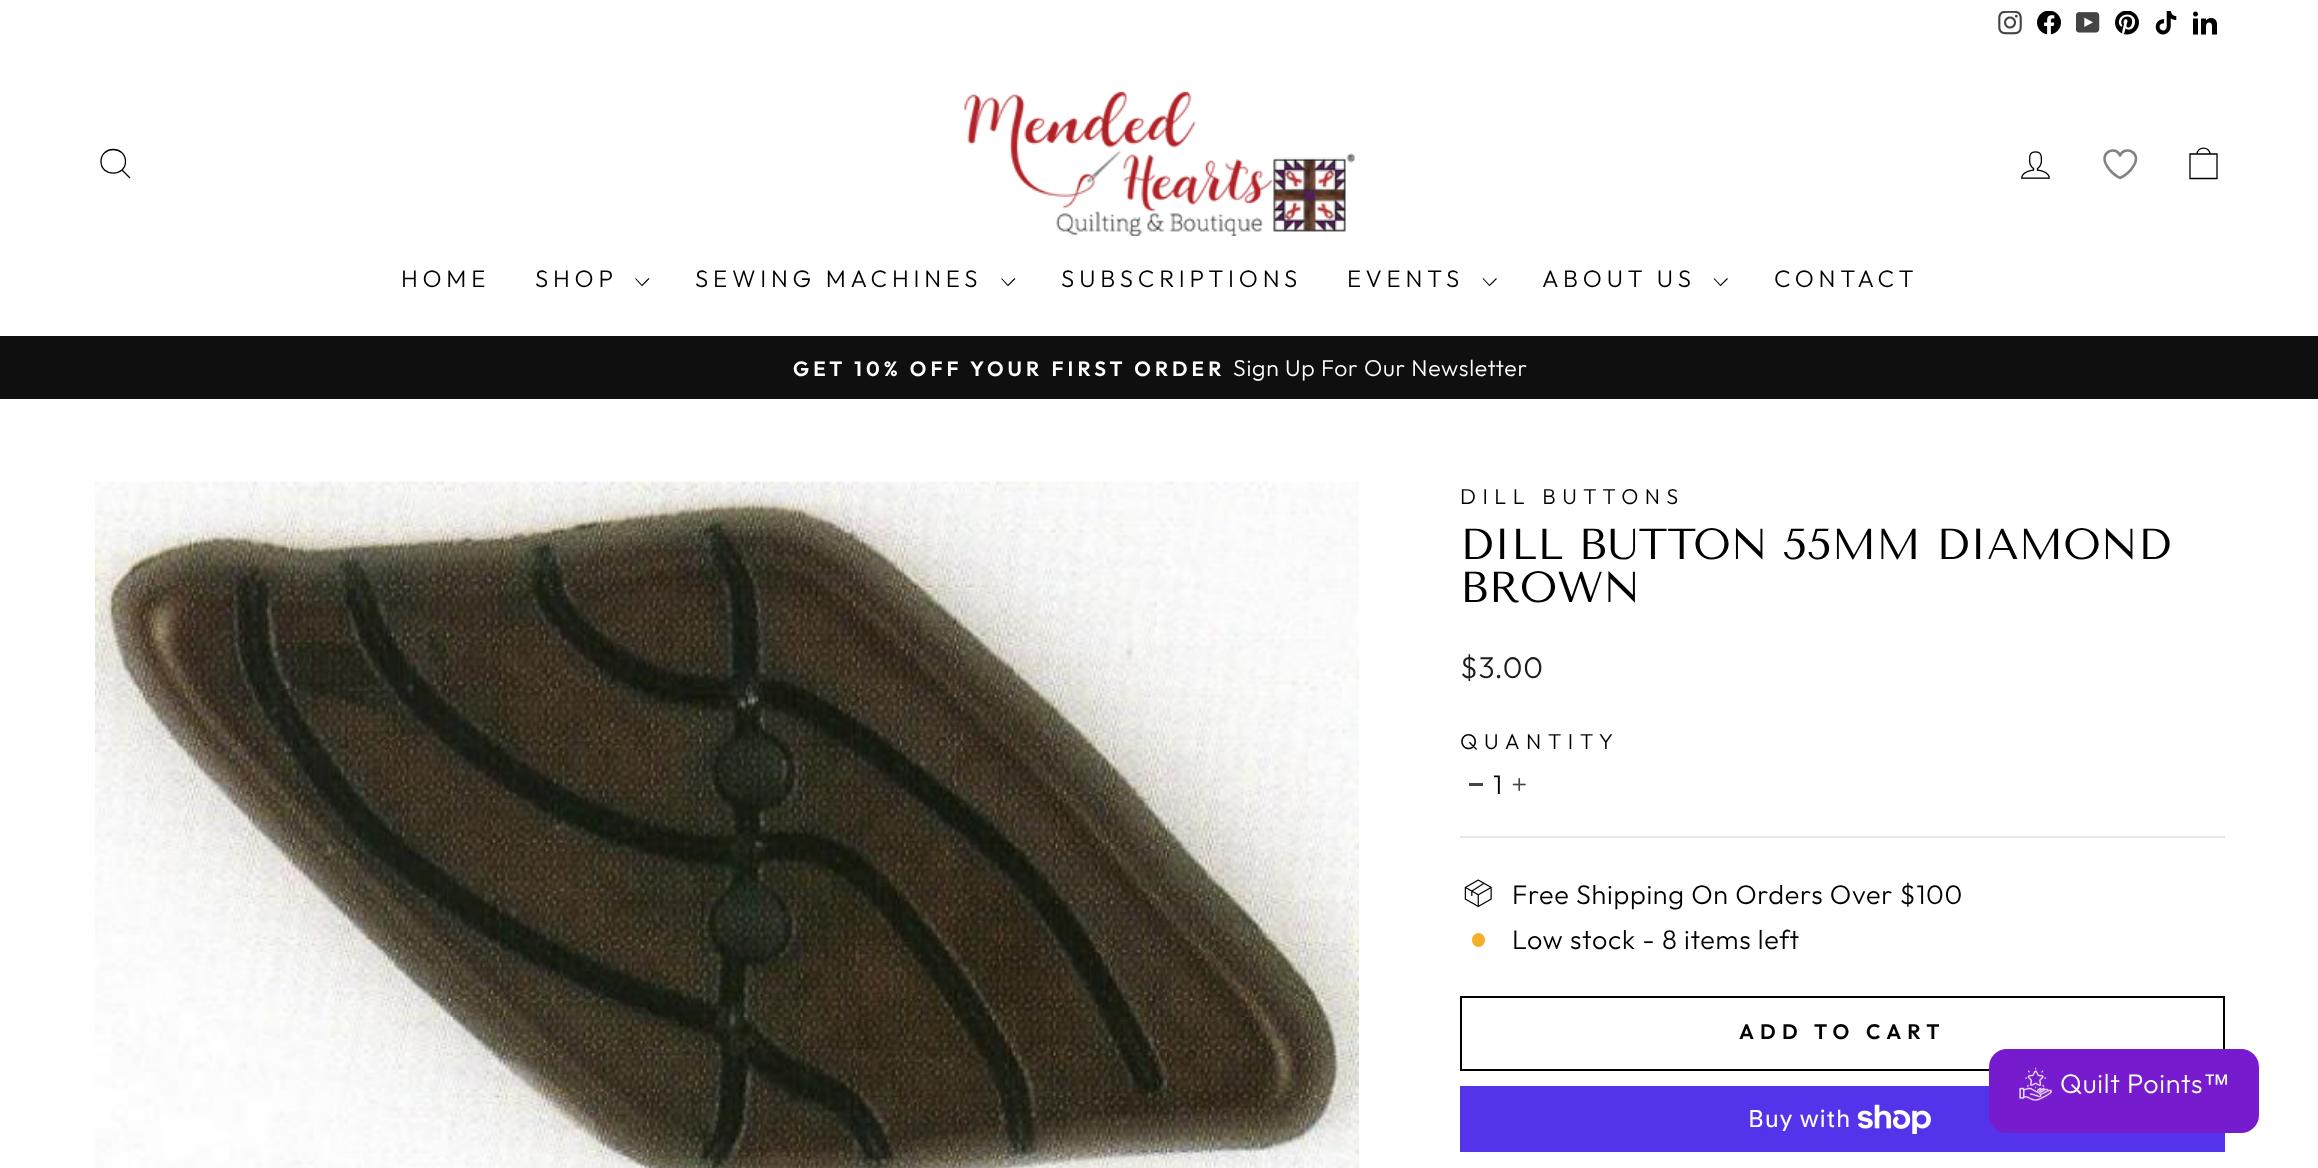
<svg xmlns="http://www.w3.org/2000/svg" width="2318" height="1168">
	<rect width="100%" height="100%" fill="#FFFFFF" />
	<image x="1998" y="11" width="24" height="24" href="assets/img1.png" />
	<image x="2037" y="11" width="24" height="24" href="assets/img2.png" />
	<image x="2076" y="12" width="24" height="21" href="assets/img3.png" />
	<image x="2115" y="11" width="24" height="24" href="assets/img4.png" />
	<image x="2155" y="11" width="22" height="24" href="assets/img5.png" />
	<image x="2193" y="11" width="24" height="24" href="assets/img6.png" />
	<path d="M125.5 161.5C125.5 177 101 177 101 161.5C101 145.5 125.5 145.5 125.5 161.5ZM130 178L122 170" fill="none" stroke="#000000" stroke-width="1.3" />
	<image x="964" y="91" width="391" height="145" href="assets/img7.png" />
	<image x="2021" y="151" width="29" height="28" href="assets/img8.png" />
	<path d="M2120 178C2115 175.5 2110 171 2107 166C2098 152 2116 145 2120 155.5C2124.5 145 2142.5 152 2133.5 166C2130.5 171 2125.5 175.5 2120 178Z" fill="none" stroke="#828282" stroke-width="2.5" stroke-linecap="round" stroke-linejoin="round" />
	<path d="M2190 154H2217V178.5H2190ZM2197 154.5C2197 146 2210 146 2210 154.5" fill="none" stroke="#000000" stroke-width="1.3" />
	<g font-family="Outfit" font-size="24" font-weight="300" letter-spacing="4.75" fill="#000000">
		<text x="401" y="287">HOME</text>
		<text x="535" y="287">SHOP</text>
	</g>
	<path d="M635.5 278.5L642 285.5L649 278.5" fill="none" stroke="#000000" stroke-width="1.1" />
	<text x="695" y="287" font-family="Outfit" font-size="24" font-weight="300" letter-spacing="4.75" fill="#000000">SEWING MACHINES</text>
	<path d="M1001.5 278.5L1008 285.5L1015 278.5" fill="none" stroke="#000000" stroke-width="1.1" />
	<g font-family="Outfit" font-size="24" font-weight="300" letter-spacing="4.75" fill="#000000">
		<text x="1061" y="287">SUBSCRIPTIONS</text>
		<text x="1347" y="287">EVENTS</text>
	</g>
	<path d="M1483 278.5L1489.5 285.5L1496.5 278.5" fill="none" stroke="#000000" stroke-width="1.1" />
	<text x="1542" y="287" font-family="Outfit" font-size="24" font-weight="300" letter-spacing="4.75" fill="#000000">ABOUT US</text>
	<path d="M1714 278.5L1720.5 285.5L1727.5 278.5" fill="none" stroke="#000000" stroke-width="1.1" />
	<text x="1774" y="287" font-family="Outfit" font-size="24" font-weight="300" letter-spacing="4.75" fill="#000000">CONTACT</text>
	<rect x="0" y="336" width="2318" height="63" fill="#0F0F0F" />
	<text x="793" y="376" font-family="Outfit" font-size="20.7" font-weight="600" letter-spacing="4.1" fill="#FFFFFF">GET 10% OFF YOUR FIRST ORDER</text>
	<text x="1233" y="376" font-family="Outfit" font-size="23" font-weight="300" letter-spacing="0.7" fill="#FFFFFF">Sign Up For Our Newsletter</text>
	<image x="95" y="481" width="1264" height="687" href="assets/img9.png" />
	<text x="1460" y="504" font-family="Outfit" font-size="21.6" font-weight="300" letter-spacing="6.5" fill="#000000">DILL BUTTONS</text>
	<g font-family="Tenor Sans" font-size="43.4" fill="#000000">
		<text x="1460" y="559">DILL BUTTON 55MM DIAMOND</text>
		<text x="1460" y="602">BROWN</text>
	</g>
	<text x="1460" y="678" font-family="Outfit" font-size="30" font-weight="300" letter-spacing="0.7" fill="#1C1D1D">$3.00</text>
	<text x="1460" y="749" font-family="Outfit" font-size="21.6" font-weight="300" letter-spacing="6.5" fill="#000000">QUANTITY</text>
	<rect x="1469" y="783" width="14" height="3" fill="#444444" />
	<text x="1493" y="794" font-family="Outfit" font-size="27" font-weight="300" letter-spacing="0.7" fill="#000000">1</text>
	<image x="1512" y="778" width="14" height="13" href="assets/img10.png" />
	<rect x="1460" y="836" width="765" height="2" fill="#E8E8E1" />
	<image x="1464" y="879" width="28" height="29" href="assets/img11.png" />
	<text x="1512" y="904" font-family="Outfit" font-size="27" font-weight="300" letter-spacing="0.7" fill="#000000">Free Shipping On Orders Over $100</text>
	<rect x="1472" y="933" width="13" height="14" rx="6.5" fill="#F4AF29" />
	<text x="1512" y="949" font-family="Outfit" font-size="27" font-weight="300" letter-spacing="0.7" fill="#000000">Low stock - 8 items left</text>
	<rect x="1461" y="997" width="763" height="73" fill="none" stroke="#000000" stroke-width="2" />
	<text x="1739" y="1039" font-family="Outfit" font-size="21" font-weight="600" letter-spacing="6.25" fill="#000000">ADD TO CART</text>
	<rect x="1460" y="1086" width="765" height="66" fill="#5433EB" />
	<text x="1748" y="1127" font-family="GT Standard" font-size="24" letter-spacing="0.7" fill="#FFFFFF">Buy with</text>
	<image x="1857" y="1104" width="74" height="30" href="assets/img12.png" />
	<rect x="1989" y="1049" width="270" height="84" rx="18" fill="#771BCE" />
	<image x="2019" y="1067" width="33" height="34" href="assets/img13.png" />
	<text x="2060" y="1093" font-family="Outfit" font-size="27" font-weight="300" letter-spacing="0.7" fill="#FFFFFF">Quilt Points</text>
	<text x="2203" y="1093" font-family="Liberation Sans" font-size="27" letter-spacing="0.7" fill="#FFFFFF">™</text>
</svg>
